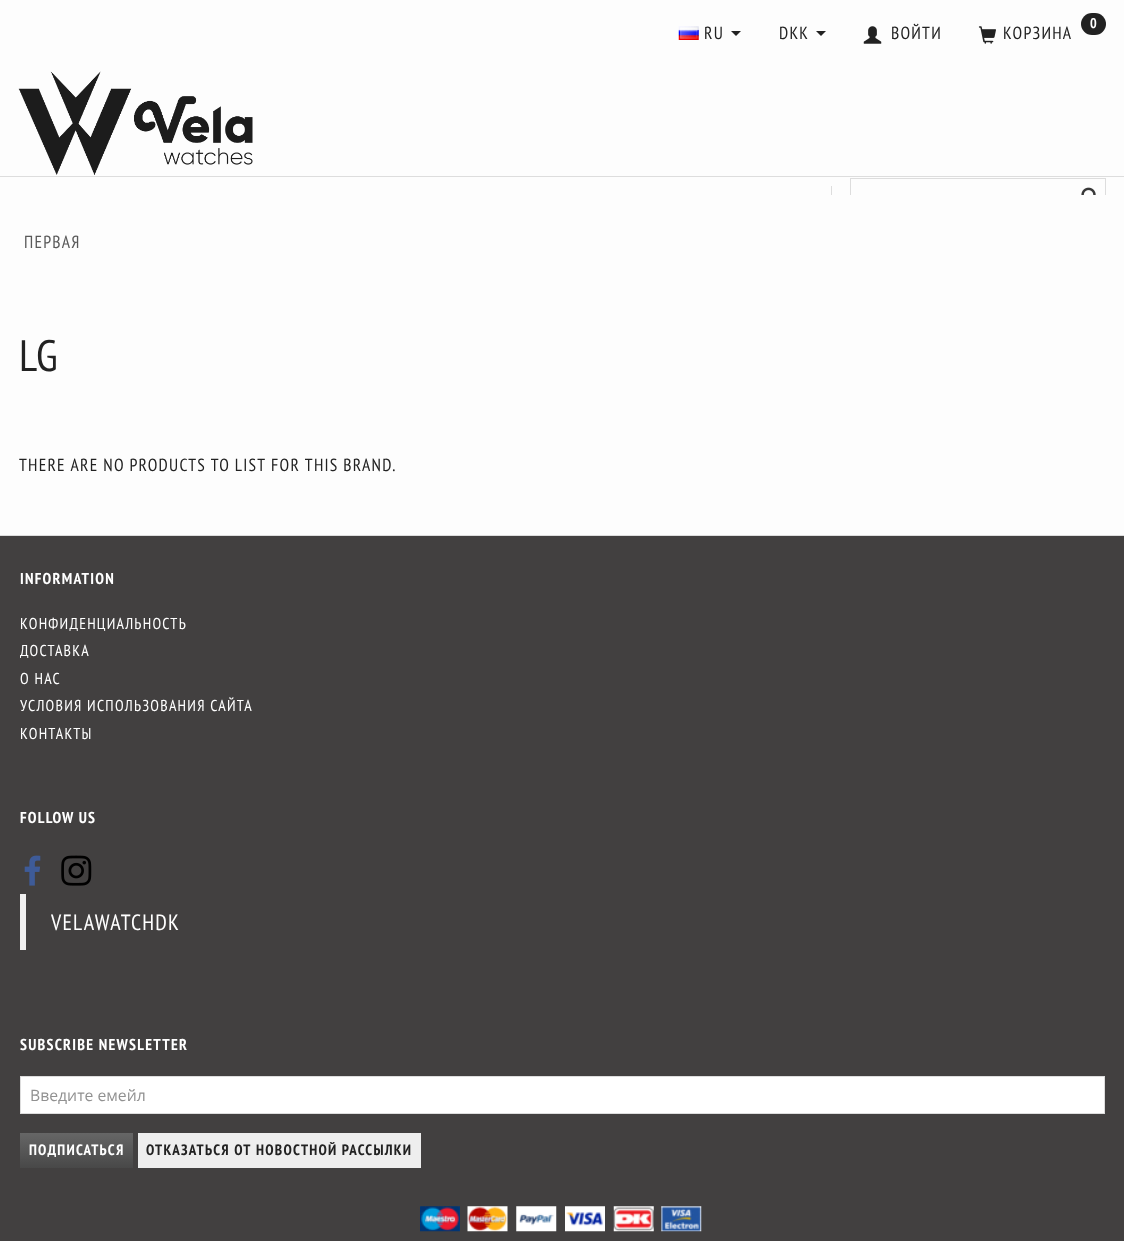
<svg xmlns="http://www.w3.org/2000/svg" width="1124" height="1241">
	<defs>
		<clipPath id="clip1"><rect x="0" y="65" width="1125" height="130" /></clipPath>
		<linearGradient id="g1" gradientUnits="userSpaceOnUse" x1="76" y1="1133" x2="76" y2="1168"><stop offset="0" stop-color="#666666" /><stop offset="1" stop-color="#484848" /></linearGradient>
	</defs>
	<rect width="100%" height="100%" fill="#FDFDFD" />
	<image x="678" y="26" width="21" height="14" href="assets/img1.png" />
	<text x="704" y="39" font-family="PT Sans Narrow" font-size="17.5" letter-spacing="1.25" fill="#222222">RU</text>
	<path d="M731 31H741L736 36Z" fill="#222222" />
	<text x="779" y="39" font-family="PT Sans Narrow" font-size="17.5" letter-spacing="1.25" fill="#222222">DKK</text>
	<path d="M816 31H826L821 36Z" fill="#222222" />
	<image x="863" y="26" width="19" height="18" href="assets/img2.png" />
	<text x="891" y="39" font-family="PT Sans Narrow" font-size="17.5" letter-spacing="1.25" fill="#222222">ВОЙТИ</text>
	<rect x="1081" y="13" width="25" height="22" rx="11" fill="#222222" />
	<text x="1090" y="28" font-family="PT Sans Narrow" font-size="14" font-weight="700" letter-spacing="1.25" fill="#FFFFFF">0</text>
	<image x="978" y="26" width="18" height="18" href="assets/img3.png" />
	<text x="1003" y="39" font-family="PT Sans Narrow" font-size="17.5" letter-spacing="1.25" fill="#222222">КОРЗИНА</text>
	<rect x="0" y="176" width="1124" height="1" fill="#DDDDDD" />
	<image x="18" y="71" width="235" height="104" href="assets/img4.png" />
	<rect x="831" y="186" width="1" height="9" fill="#DDDDDD" />
	<g clip-path="url(#clip1)">
		<rect x="850.5" y="178.5" width="255" height="39" fill="none" stroke="#DDDDDD" />
	</g>
	<image x="1081" y="187" width="15" height="8" href="assets/img5.png" />
	<text x="24" y="248" font-family="PT Sans Narrow" font-size="17.5" letter-spacing="1.25" fill="#595959">ПЕРВАЯ</text>
	<text x="19" y="371" font-family="PT Sans Narrow" font-size="44" letter-spacing="1.25" fill="#222222">LG</text>
	<text x="19" y="471" word-spacing="-0.25" font-family="PT Sans Narrow" font-size="17.5" letter-spacing="1.25" fill="#222222">THERE ARE NO PRODUCTS TO LIST FOR THIS BRAND.</text>
	<rect x="0" y="536" width="1124" height="705" fill="#424040" />
	<rect x="0" y="535" width="1124" height="1" fill="#DDDDDD" />
	<text x="20" y="584" font-family="PT Sans Narrow" font-size="15.75" font-weight="700" letter-spacing="1.25" fill="#FFFFFF">INFORMATION</text>
	<g font-family="PT Sans Narrow" font-size="15.75" letter-spacing="1.25" fill="#FFFFFF">
		<text x="20" y="629">КОНФИДЕНЦИАЛЬНОСТЬ</text>
		<text x="20" y="656">ДОСТАВКА</text>
		<text x="20" y="684">О НАС</text>
		<text x="20" y="711">УСЛОВИЯ ИСПОЛЬЗОВАНИЯ САЙТА</text>
		<text x="20" y="739">КОНТАКТЫ</text>
	</g>
	<text x="20" y="823" font-family="PT Sans Narrow" font-size="15.75" font-weight="700" letter-spacing="1.25" fill="#FFFFFF">FOLLOW US</text>
	<image x="24" y="855" width="17" height="31" href="assets/img6.png" />
	<image x="61" y="855" width="31" height="31" href="assets/img7.png" />
	<rect x="20" y="894" width="6" height="56" fill="#F1F1F1" />
	<text x="51" y="930" font-family="PT Sans Narrow" font-size="22" letter-spacing="1.25" fill="#FFFFFF">VELAWATCHDK</text>
	<text x="20" y="1050" font-family="PT Sans Narrow" font-size="15.75" font-weight="700" letter-spacing="1.25" fill="#FFFFFF">SUBSCRIBE NEWSLETTER</text>
	<rect x="20.5" y="1076.5" width="1084" height="37" fill="#FFFFFF" stroke="#DDDDDD" />
	<text x="30" y="1101" font-family="Open Sans" font-size="15.75" fill="#919191">Введите емейл</text>
	<rect x="20" y="1133" width="113" height="35" fill="url(#g1)" />
	<text x="29" y="1155" font-family="PT Sans Narrow" font-size="15" font-weight="700" letter-spacing="1.25" fill="#FFFFFF">ПОДПИСАТЬСЯ</text>
	<rect x="138" y="1133" width="283" height="35" fill="#EEEEEE" />
	<text x="146" y="1155" font-family="PT Sans Narrow" font-size="15" font-weight="700" letter-spacing="1.25" fill="#222222">ОТКАЗАТЬСЯ ОТ НОВОСТНОЙ РАССЫЛКИ</text>
	<image x="420" y="1206" width="40" height="26" href="assets/img8.png" />
	<image x="467" y="1206" width="41" height="26" href="assets/img9.png" />
	<image x="516" y="1206" width="41" height="26" href="assets/img10.png" />
	<image x="565" y="1206" width="40" height="26" href="assets/img11.png" />
	<image x="613" y="1206" width="41" height="26" href="assets/img12.png" />
	<image x="661" y="1206" width="41" height="26" href="assets/img13.png" />
</svg>
